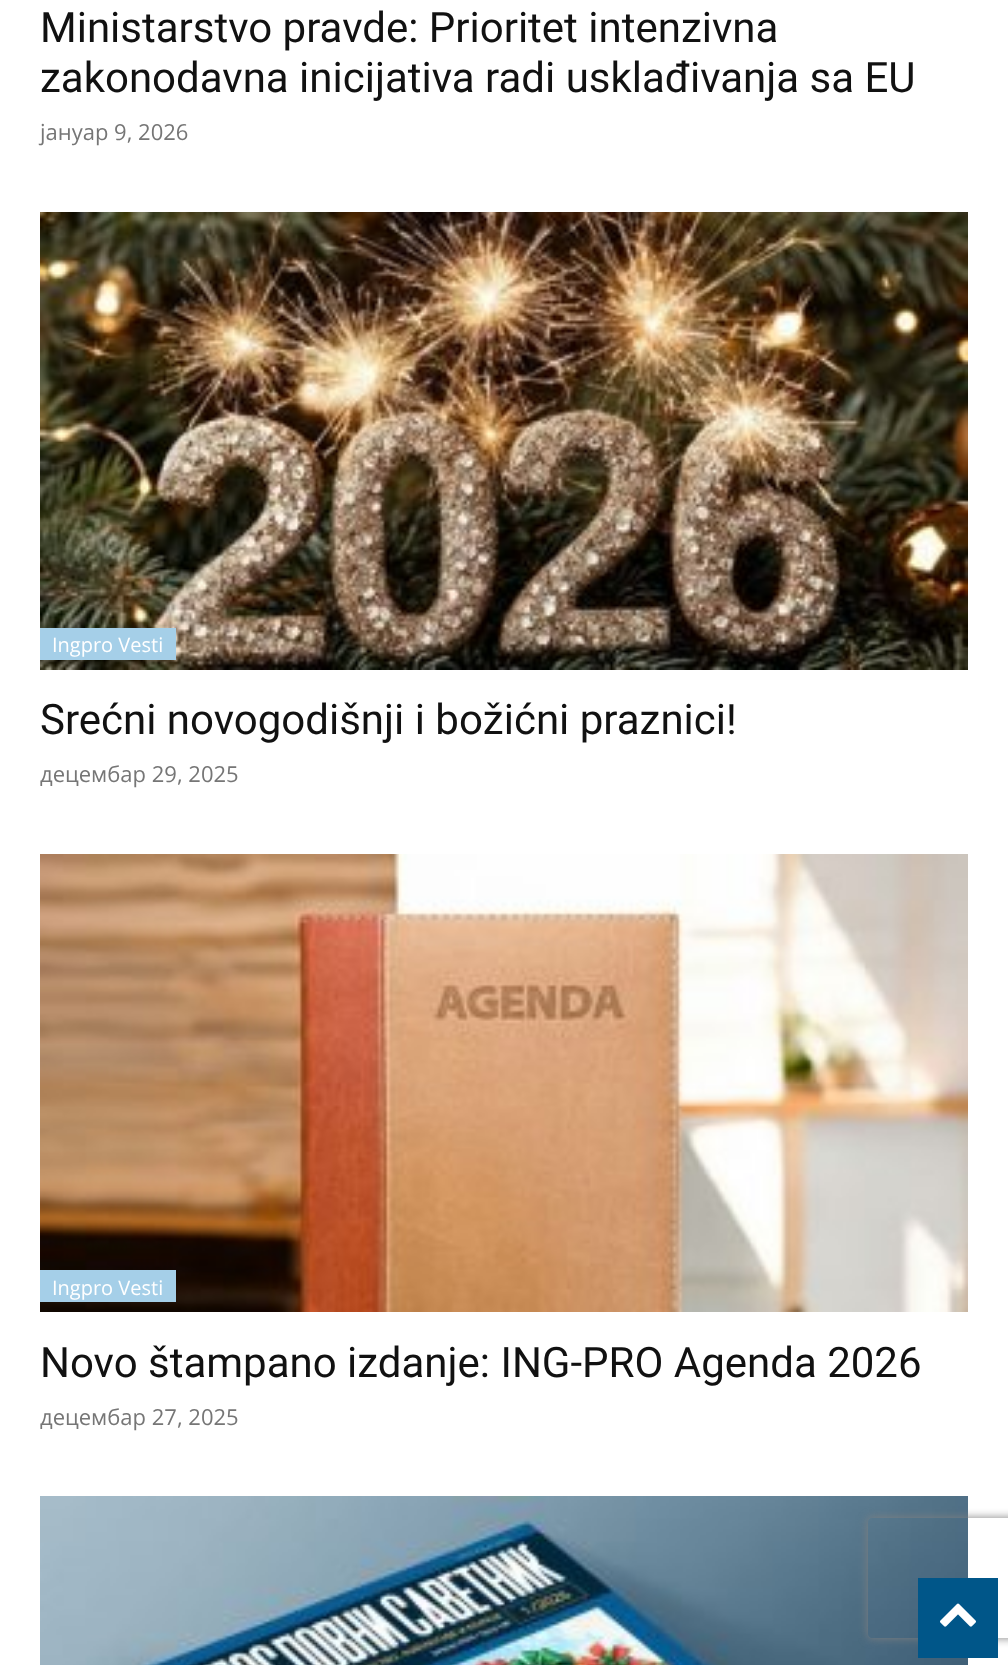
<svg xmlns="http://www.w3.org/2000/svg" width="1008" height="1665">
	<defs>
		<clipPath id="clip1"><path d="M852 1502H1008V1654H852ZM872 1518H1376C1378 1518 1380 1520 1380 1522V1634C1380 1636 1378 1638 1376 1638H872C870 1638 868 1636 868 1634V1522C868 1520 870 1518 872 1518Z" clip-rule="evenodd" /></clipPath>
	</defs>
	<rect width="100%" height="100%" fill="#FFFFFF" />
	<g font-family="Roboto" font-size="42" fill="#111111">
		<text x="40" y="42">Ministarstvo pravde: Prioritet intenzivna</text>
		<text x="40" y="92">zakonodavna inicijativa radi usklađivanja sa EU</text>
	</g>
	<text x="40" y="140" font-family="Open Sans" font-size="22" fill="#767676">јануар 9, 2026</text>
	<image x="40" y="212" width="928" height="458" href="assets/img1.png" />
	<rect x="40" y="628" width="136" height="32" fill="#A5CFE8" />
	<text x="52" y="652" font-family="Open Sans" font-size="20" fill="#FFFFFF">Ingpro Vesti</text>
	<text x="40" y="734" font-family="Roboto" font-size="42" fill="#111111">Srećni novogodišnji i božićni praznici!</text>
	<text x="40" y="782" font-family="Open Sans" font-size="22" fill="#767676">децембар 29, 2025</text>
	<image x="40" y="854" width="928" height="458" href="assets/img2.png" />
	<rect x="40" y="1270" width="136" height="32" fill="#A5CFE8" />
	<text x="52" y="1295" font-family="Open Sans" font-size="20" fill="#FFFFFF">Ingpro Vesti</text>
	<text x="40" y="1377" font-family="Roboto" font-size="42" fill="#111111">Novo štampano izdanje: ING-PRO Agenda 2026</text>
	<text x="40" y="1425" font-family="Open Sans" font-size="22" fill="#767676">децембар 27, 2025</text>
	<image x="40" y="1496" width="928" height="169" href="assets/img3.png" />
	<g clip-path="url(#clip1)">
		<rect x="868" y="1518" width="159" height="120" rx="4" fill="#808080" filter="blur(5px)" />
	</g>
	<rect x="918" y="1578" width="80" height="80" fill="#005689" />
	<image x="940" y="1603" width="36" height="24" href="assets/img4.png" />
</svg>
